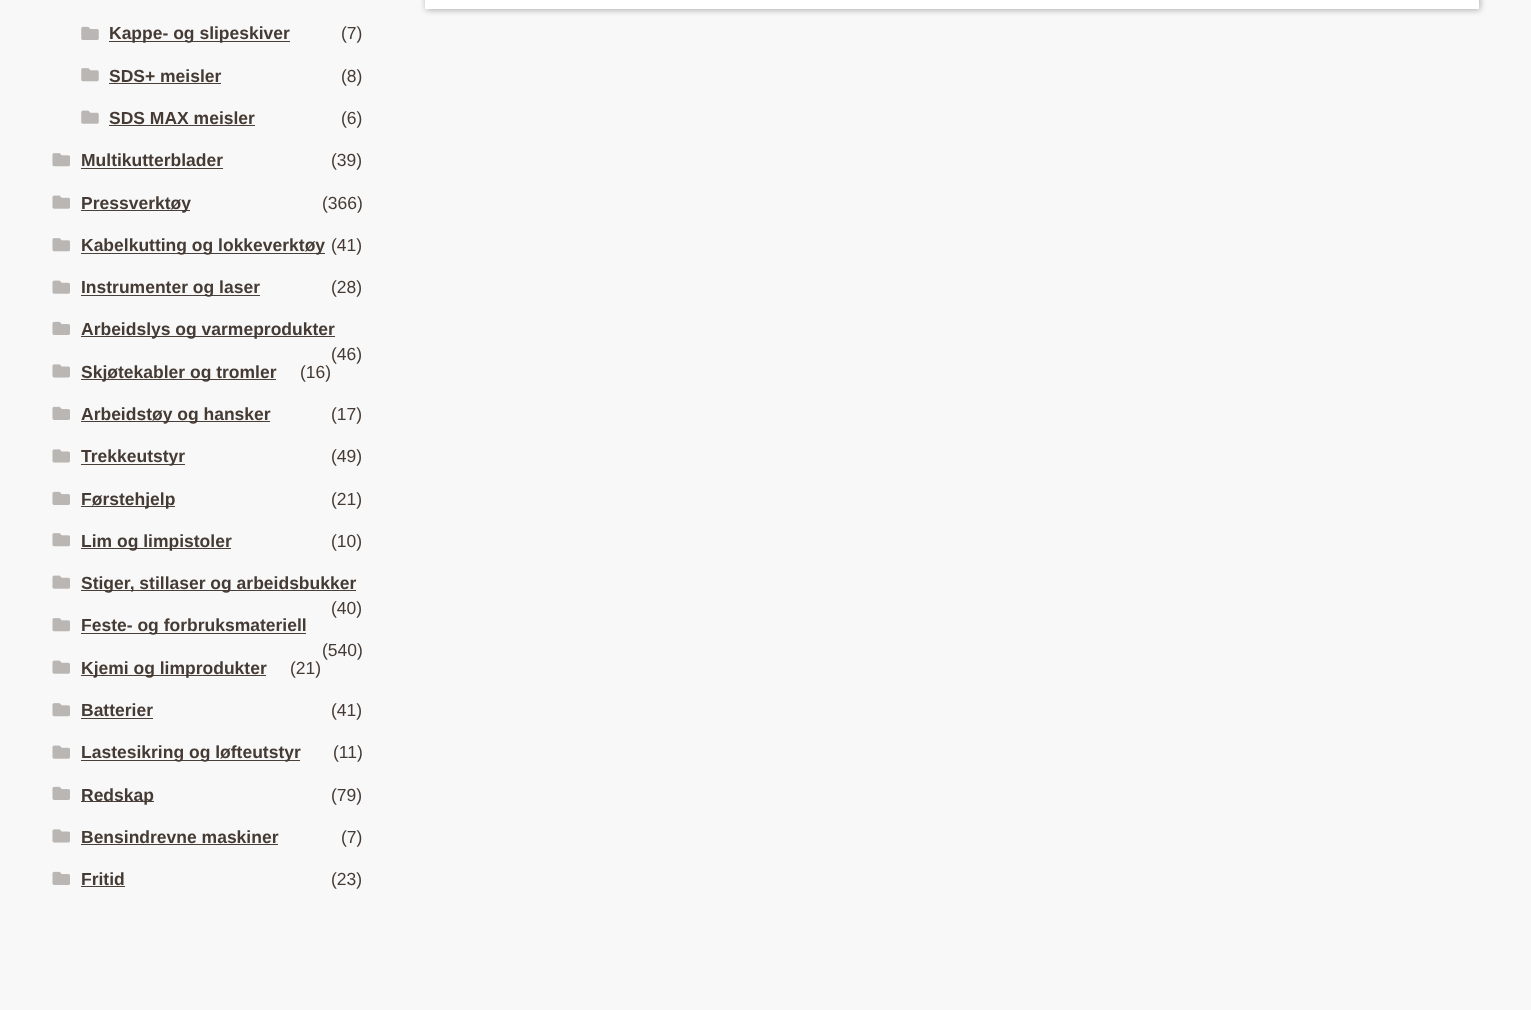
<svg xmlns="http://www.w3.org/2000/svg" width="1531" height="1010">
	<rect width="100%" height="100%" fill="#F8F8F8" />
	<rect x="426" y="-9" width="1054" height="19" fill="#000000" fill-opacity="0.3" filter="blur(3px)" />
	<rect x="425" y="0" width="1054" height="9" fill="#FFFFFF" />
	<image x="81" y="26" width="18" height="14" href="assets/img1.png" />
	<rect x="109" y="41" width="181" height="1" fill="#4A4039" />
	<text x="109" y="39" font-family="Liberation Sans" font-size="17.5" font-weight="700" fill="#453B34">Kappe- og slipeskiver</text>
	<text x="341" y="39" font-family="Liberation Sans" font-size="17.5" fill="#453B34">(7)</text>
	<image x="81" y="68" width="18" height="14" href="assets/img2.png" />
	<text x="109" y="82" font-family="Liberation Sans" font-size="17.5" font-weight="700" fill="#453B34">SDS+ meisler</text>
	<rect x="109" y="83" width="112" height="1" fill="#4A4039" />
	<text x="341" y="82" font-family="Liberation Sans" font-size="17.5" fill="#453B34">(8)</text>
	<image x="81" y="110" width="18" height="14" href="assets/img3.png" />
	<text x="109" y="124" font-family="Liberation Sans" font-size="17.5" font-weight="700" fill="#453B34">SDS MAX meisler</text>
	<rect x="109" y="125" width="146" height="1" fill="#4A4039" />
	<text x="341" y="124" font-family="Liberation Sans" font-size="17.5" fill="#453B34">(6)</text>
	<image x="52" y="153" width="18" height="14" href="assets/img4.png" />
	<text x="81" y="166" font-family="Liberation Sans" font-size="17.5" font-weight="700" fill="#453B34">Multikutterblader</text>
	<rect x="81" y="168" width="142" height="1" fill="#4A4039" />
	<text x="331" y="166" font-family="Liberation Sans" font-size="17.5" fill="#453B34">(39)</text>
	<image x="52" y="195" width="18" height="14" href="assets/img5.png" />
	<rect x="81" y="210" width="109" height="1" fill="#4A4039" />
	<text x="81" y="209" font-family="Liberation Sans" font-size="17.5" font-weight="700" fill="#453B34">Pressverktøy</text>
	<text x="322" y="209" font-family="Liberation Sans" font-size="17.5" fill="#453B34">(366)</text>
	<image x="52" y="238" width="18" height="14" href="assets/img4.png" />
	<rect x="81" y="253" width="244" height="1" fill="#4A4039" />
	<text x="81" y="251" font-family="Liberation Sans" font-size="17.5" font-weight="700" fill="#453B34">Kabelkutting og lokkeverktøy</text>
	<text x="331" y="251" font-family="Liberation Sans" font-size="17.5" fill="#453B34">(41)</text>
	<image x="52" y="280" width="18" height="14" href="assets/img5.png" />
	<rect x="81" y="295" width="179" height="1" fill="#4A4039" />
	<text x="81" y="293" font-family="Liberation Sans" font-size="17.5" font-weight="700" fill="#453B34">Instrumenter og laser</text>
	<text x="331" y="293" font-family="Liberation Sans" font-size="17.5" fill="#453B34">(28)</text>
	<image x="52" y="321" width="18" height="14" href="assets/img6.png" />
	<rect x="81" y="336" width="254" height="1" fill="#4A4039" />
	<text x="81" y="335" font-family="Liberation Sans" font-size="17.5" font-weight="700" fill="#453B34">Arbeidslys og varmeprodukter</text>
	<text x="331" y="360" font-family="Liberation Sans" font-size="17.5" fill="#453B34">(46)</text>
	<image x="52" y="364" width="18" height="14" href="assets/img7.png" />
	<rect x="81" y="379" width="195" height="1" fill="#4A4039" />
	<text x="81" y="378" font-family="Liberation Sans" font-size="17.5" font-weight="700" fill="#453B34">Skjøtekabler og tromler</text>
	<text x="300" y="378" font-family="Liberation Sans" font-size="17.5" fill="#453B34">(16)</text>
	<image x="52" y="406" width="18" height="14" href="assets/img6.png" />
	<rect x="81" y="421" width="189" height="1" fill="#4A4039" />
	<text x="81" y="420" font-family="Liberation Sans" font-size="17.5" font-weight="700" fill="#453B34">Arbeidstøy og hansker</text>
	<text x="331" y="420" font-family="Liberation Sans" font-size="17.5" fill="#453B34">(17)</text>
	<image x="52" y="449" width="18" height="14" href="assets/img7.png" />
	<rect x="81" y="464" width="104" height="1" fill="#4A4039" />
	<text x="81" y="462" font-family="Liberation Sans" font-size="17.5" font-weight="700" fill="#453B34">Trekkeutstyr</text>
	<text x="331" y="462" font-family="Liberation Sans" font-size="17.5" fill="#453B34">(49)</text>
	<image x="52" y="491" width="18" height="14" href="assets/img6.png" />
	<rect x="81" y="506" width="94" height="1" fill="#4A4039" />
	<text x="81" y="505" font-family="Liberation Sans" font-size="17.5" font-weight="700" fill="#453B34">Førstehjelp</text>
	<text x="331" y="505" font-family="Liberation Sans" font-size="17.5" fill="#453B34">(21)</text>
	<image x="52" y="533" width="18" height="14" href="assets/img4.png" />
	<rect x="81" y="548" width="150" height="1" fill="#4A4039" />
	<text x="81" y="547" font-family="Liberation Sans" font-size="17.5" font-weight="700" fill="#453B34">Lim og limpistoler</text>
	<text x="331" y="547" font-family="Liberation Sans" font-size="17.5" fill="#453B34">(10)</text>
	<image x="52" y="575" width="18" height="14" href="assets/img5.png" />
	<rect x="81" y="590" width="275" height="1" fill="#4A4039" />
	<text x="81" y="589" font-family="Liberation Sans" font-size="17.5" font-weight="700" fill="#453B34">Stiger, stillaser og arbeidsbukker</text>
	<text x="331" y="614" font-family="Liberation Sans" font-size="17.5" fill="#453B34">(40)</text>
	<image x="52" y="618" width="18" height="14" href="assets/img4.png" />
	<rect x="81" y="633" width="225" height="1" fill="#4A4039" />
	<text x="81" y="631" font-family="Liberation Sans" font-size="17.5" font-weight="700" fill="#453B34">Feste- og forbruksmateriell</text>
	<text x="322" y="656" font-family="Liberation Sans" font-size="17.5" fill="#453B34">(540)</text>
	<image x="52" y="660" width="18" height="14" href="assets/img5.png" />
	<rect x="81" y="675" width="185" height="1" fill="#4A4039" />
	<text x="81" y="674" font-family="Liberation Sans" font-size="17.5" font-weight="700" fill="#453B34">Kjemi og limprodukter</text>
	<text x="290" y="674" font-family="Liberation Sans" font-size="17.5" fill="#453B34">(21)</text>
	<image x="52" y="703" width="18" height="14" href="assets/img4.png" />
	<text x="81" y="716" font-family="Liberation Sans" font-size="17.5" font-weight="700" fill="#453B34">Batterier</text>
	<rect x="81" y="718" width="72" height="1" fill="#4A4039" />
	<text x="331" y="716" font-family="Liberation Sans" font-size="17.5" fill="#453B34">(41)</text>
	<image x="52" y="745" width="18" height="14" href="assets/img5.png" />
	<rect x="81" y="760" width="219" height="1" fill="#4A4039" />
	<text x="81" y="758" font-family="Liberation Sans" font-size="17.5" font-weight="700" fill="#453B34">Lastesikring og løfteutstyr</text>
	<text x="333" y="758" font-family="Liberation Sans" font-size="17.5" fill="#453B34">(11)</text>
	<image x="52" y="786" width="18" height="14" href="assets/img6.png" />
	<rect x="81" y="801" width="73" height="1" fill="#4A4039" />
	<text x="81" y="801" font-family="Liberation Sans" font-size="17.5" font-weight="700" fill="#453B34">Redskap</text>
	<text x="331" y="801" font-family="Liberation Sans" font-size="17.5" fill="#453B34">(79)</text>
	<image x="52" y="829" width="18" height="14" href="assets/img7.png" />
	<text x="81" y="843" font-family="Liberation Sans" font-size="17.5" font-weight="700" fill="#453B34">Bensindrevne maskiner</text>
	<rect x="81" y="844" width="197" height="1" fill="#4A4039" />
	<text x="341" y="843" font-family="Liberation Sans" font-size="17.5" fill="#453B34">(7)</text>
	<image x="52" y="871" width="18" height="14" href="assets/img6.png" />
	<text x="81" y="885" font-family="Liberation Sans" font-size="17.5" font-weight="700" fill="#453B34">Fritid</text>
	<rect x="81" y="886" width="44" height="1" fill="#4A4039" />
	<text x="331" y="885" font-family="Liberation Sans" font-size="17.5" fill="#453B34">(23)</text>
</svg>
